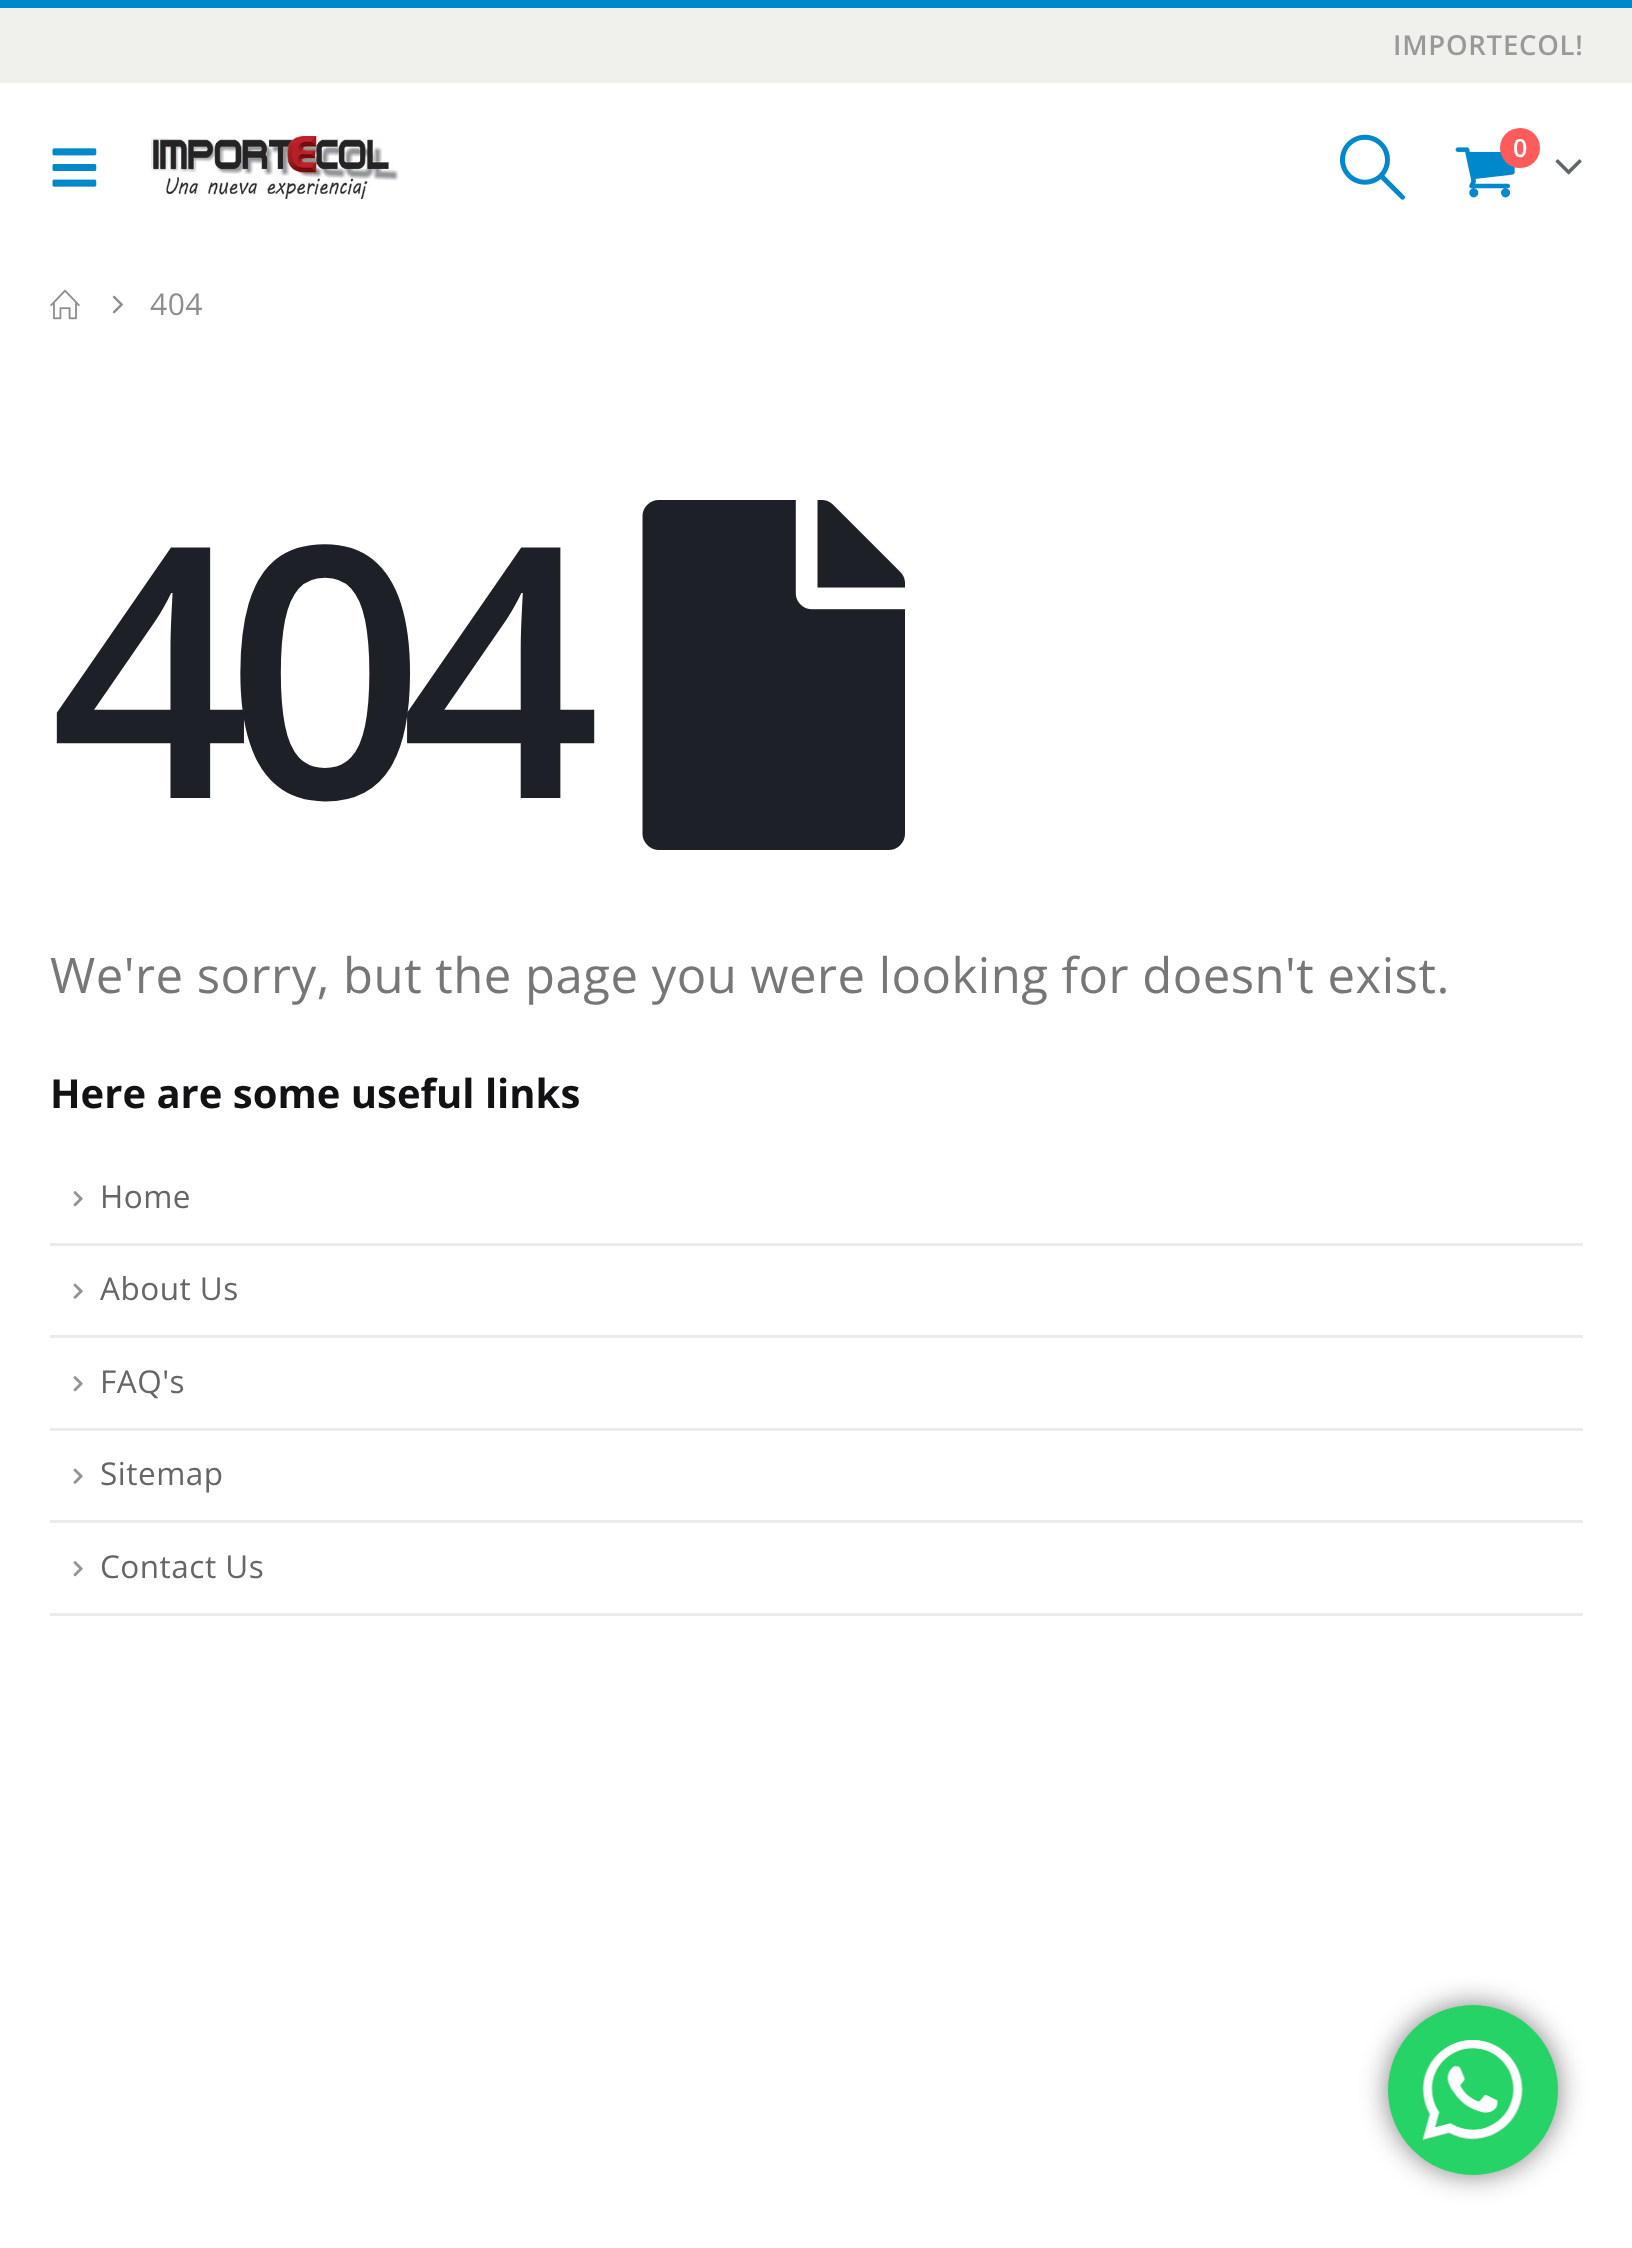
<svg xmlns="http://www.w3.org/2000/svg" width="1632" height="2248">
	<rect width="100%" height="100%" fill="#FFFFFF" />
	<rect x="0" y="0" width="1632" height="8" fill="#0088CC" />
	<rect x="0" y="8" width="1632" height="75" fill="#F0F0ED" />
	<text x="1393" y="55" font-family="Open Sans" font-size="27.5" font-weight="600" letter-spacing="0.75" fill="#999999">IMPORTECOL!</text>
	<image x="52" y="148" width="45" height="39" href="assets/img1.png" />
	<image x="151" y="132" width="248" height="67" href="assets/img2.png" />
	<image x="1340" y="134" width="65" height="66" href="assets/img3.png" />
	<image x="1455" y="147" width="60" height="51" href="assets/img4.png" />
	<circle cx="1520" cy="148" r="20" fill="#FF5B5B" />
	<text x="1513" y="157" font-family="Open Sans" font-size="25" font-weight="600" letter-spacing="0.5" fill="#FFFFFF">0</text>
	<image x="1555" y="159" width="27" height="16" href="assets/img5.png" />
	<image x="50" y="289" width="30" height="31" href="assets/img6.png" />
	<image x="112" y="295" width="11" height="19" href="assets/img7.png" />
	<text x="150" y="315" font-family="Open Sans" font-size="30" letter-spacing="0.5" fill="#8E8E8E">404</text>
	<text x="50" y="798" font-family="Open Sans" font-size="350" font-weight="600" letter-spacing="-25" fill="#1D2127">404</text>
	<image x="642" y="500" width="263" height="350" href="assets/img8.png" />
	<text x="50" y="993" font-family="Open Sans" font-size="49" letter-spacing="0.5" fill="#777777">We're sorry, but the page you were looking for doesn't exist.</text>
	<text x="50" y="1108" font-family="Open Sans" font-size="40" font-weight="700" fill="#121214">Here are some useful links</text>
	<rect x="50" y="1243" width="1533" height="3" fill="#EBEBEB" />
	<image x="73" y="1191" width="10" height="16" href="assets/img9.png" />
	<text x="100" y="1208" font-family="Open Sans" font-size="31.5" letter-spacing="0.5" fill="#666666">Home</text>
	<rect x="50" y="1335" width="1533" height="3" fill="#EBEBEB" />
	<image x="73" y="1283" width="10" height="16" href="assets/img10.png" />
	<text x="100" y="1300" font-family="Open Sans" font-size="31.5" letter-spacing="0.5" fill="#666666">About Us</text>
	<rect x="50" y="1428" width="1533" height="3" fill="#EBEBEB" />
	<image x="73" y="1376" width="10" height="16" href="assets/img9.png" />
	<text x="100" y="1393" font-family="Open Sans" font-size="31.5" letter-spacing="0.5" fill="#666666">FAQ's</text>
	<rect x="50" y="1520" width="1533" height="3" fill="#EBEBEB" />
	<image x="73" y="1468" width="10" height="16" href="assets/img10.png" />
	<text x="100" y="1485" font-family="Open Sans" font-size="31.5" letter-spacing="0.5" fill="#666666">Sitemap</text>
	<rect x="50" y="1613" width="1533" height="3" fill="#EBEBEB" />
	<image x="73" y="1561" width="10" height="16" href="assets/img9.png" />
	<text x="100" y="1578" font-family="Open Sans" font-size="31.5" letter-spacing="0.5" fill="#666666">Contact Us</text>
	<rect x="1388" y="2005" width="170" height="170" rx="85" fill="#000000" fill-opacity="0.5" filter="blur(14px)" />
	<circle cx="1473" cy="2090" r="85" fill="#25D366" />
	<image x="1422" y="2040" width="101" height="100" href="assets/img11.png" />
</svg>
